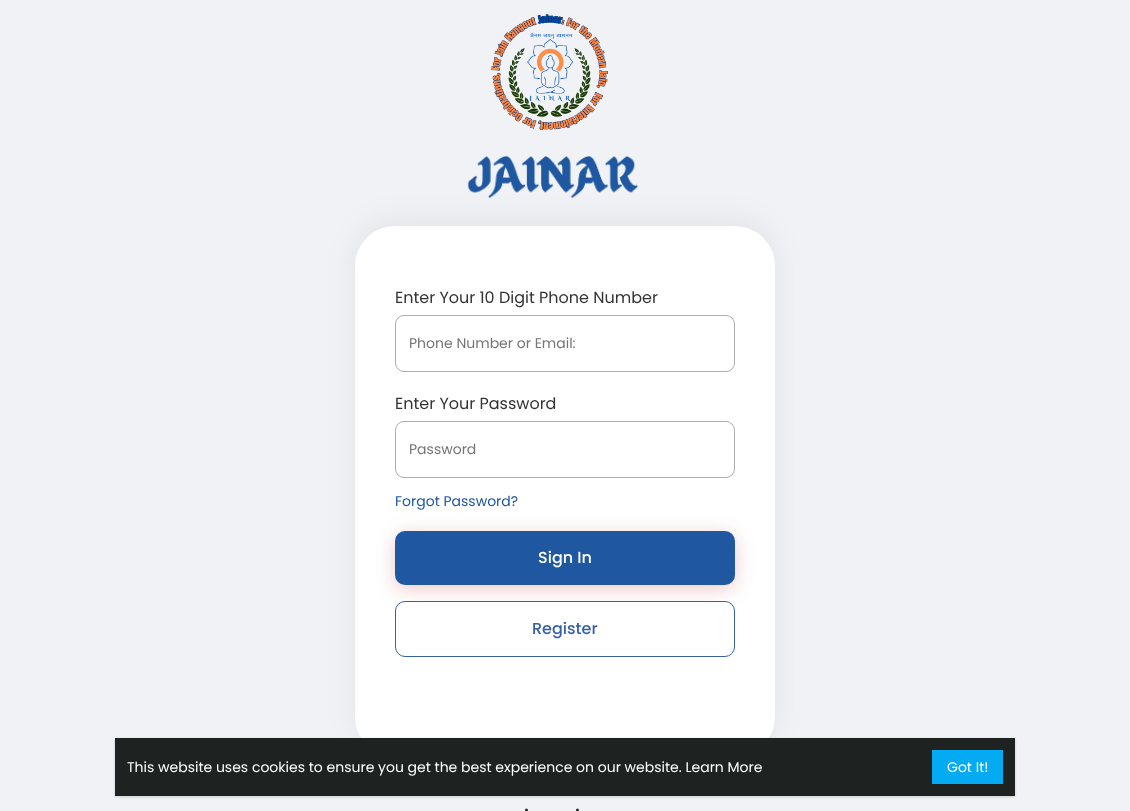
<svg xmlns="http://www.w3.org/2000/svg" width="1130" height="811">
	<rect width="100%" height="100%" fill="#F0F2F5" />
	<image x="491" y="14" width="117" height="117" href="assets/img1.png" />
	<rect x="355" y="220" width="420" height="531" rx="40" fill="#000000" fill-opacity="0.06" filter="blur(15px)" />
	<image x="467" y="156" width="172" height="43" href="assets/img2.png" />
	<rect x="355" y="226" width="420" height="531" rx="40" fill="#FFFFFF" />
	<text x="395" y="303" font-family="Poppins" font-size="16" fill="#333333">Enter Your 10 Digit Phone Number</text>
	<rect x="395.5" y="315.5" width="339" height="56" rx="8.5" fill="none" stroke="#ADADAD" />
	<text x="409" y="348" font-family="Poppins" font-size="14" fill="#757575">Phone Number or Email:</text>
	<text x="395" y="409" font-family="Poppins" font-size="16" fill="#333333">Enter Your Password</text>
	<rect x="395.5" y="421.5" width="339" height="56" rx="8.5" fill="none" stroke="#ADADAD" />
	<text x="409" y="454" font-family="Poppins" font-size="14" fill="#757575">Password</text>
	<text x="395" y="506" font-family="Poppins" font-size="14" fill="#1F58A0">Forgot Password?</text>
	<rect x="395" y="535" width="340" height="54" rx="10" fill="#C64D53" fill-opacity="0.3" filter="blur(9.5px)" />
	<rect x="395" y="531" width="340" height="54" rx="10" fill="#1F58A0" />
	<text x="538" y="563" font-family="Poppins" font-size="16" font-weight="500" fill="#FFFFFF">Sign In</text>
	<rect x="395.5" y="601.5" width="339" height="55" rx="9.5" fill="#FFFFFF" stroke="#3661A6" />
	<text x="532" y="634" font-family="Poppins" font-size="16" font-weight="500" fill="#3661A6">Register</text>
	<g font-family="Poppins" font-size="12" fill="#222222">
		<text x="524" y="814">•</text>
		<text x="575" y="814">•</text>
	</g>
	<rect x="115" y="739" width="900" height="58" fill="#000000" fill-opacity="0.06" filter="blur(1px)" />
	<rect x="115" y="739" width="900" height="58" fill="#000000" fill-opacity="0.1" filter="blur(1.5px)" />
	<rect x="115" y="738" width="900" height="58" fill="#1E2321" />
	<text x="127" y="772" font-family="Poppins" font-size="14" fill="#FFFFFF">This website uses cookies to ensure you get the best experience on our website. Learn More</text>
	<rect x="932" y="750" width="71" height="34" fill="#04ABF2" />
	<text x="947" y="772" font-family="Poppins" font-size="14" fill="#FFFFFF">Got It!</text>
</svg>
